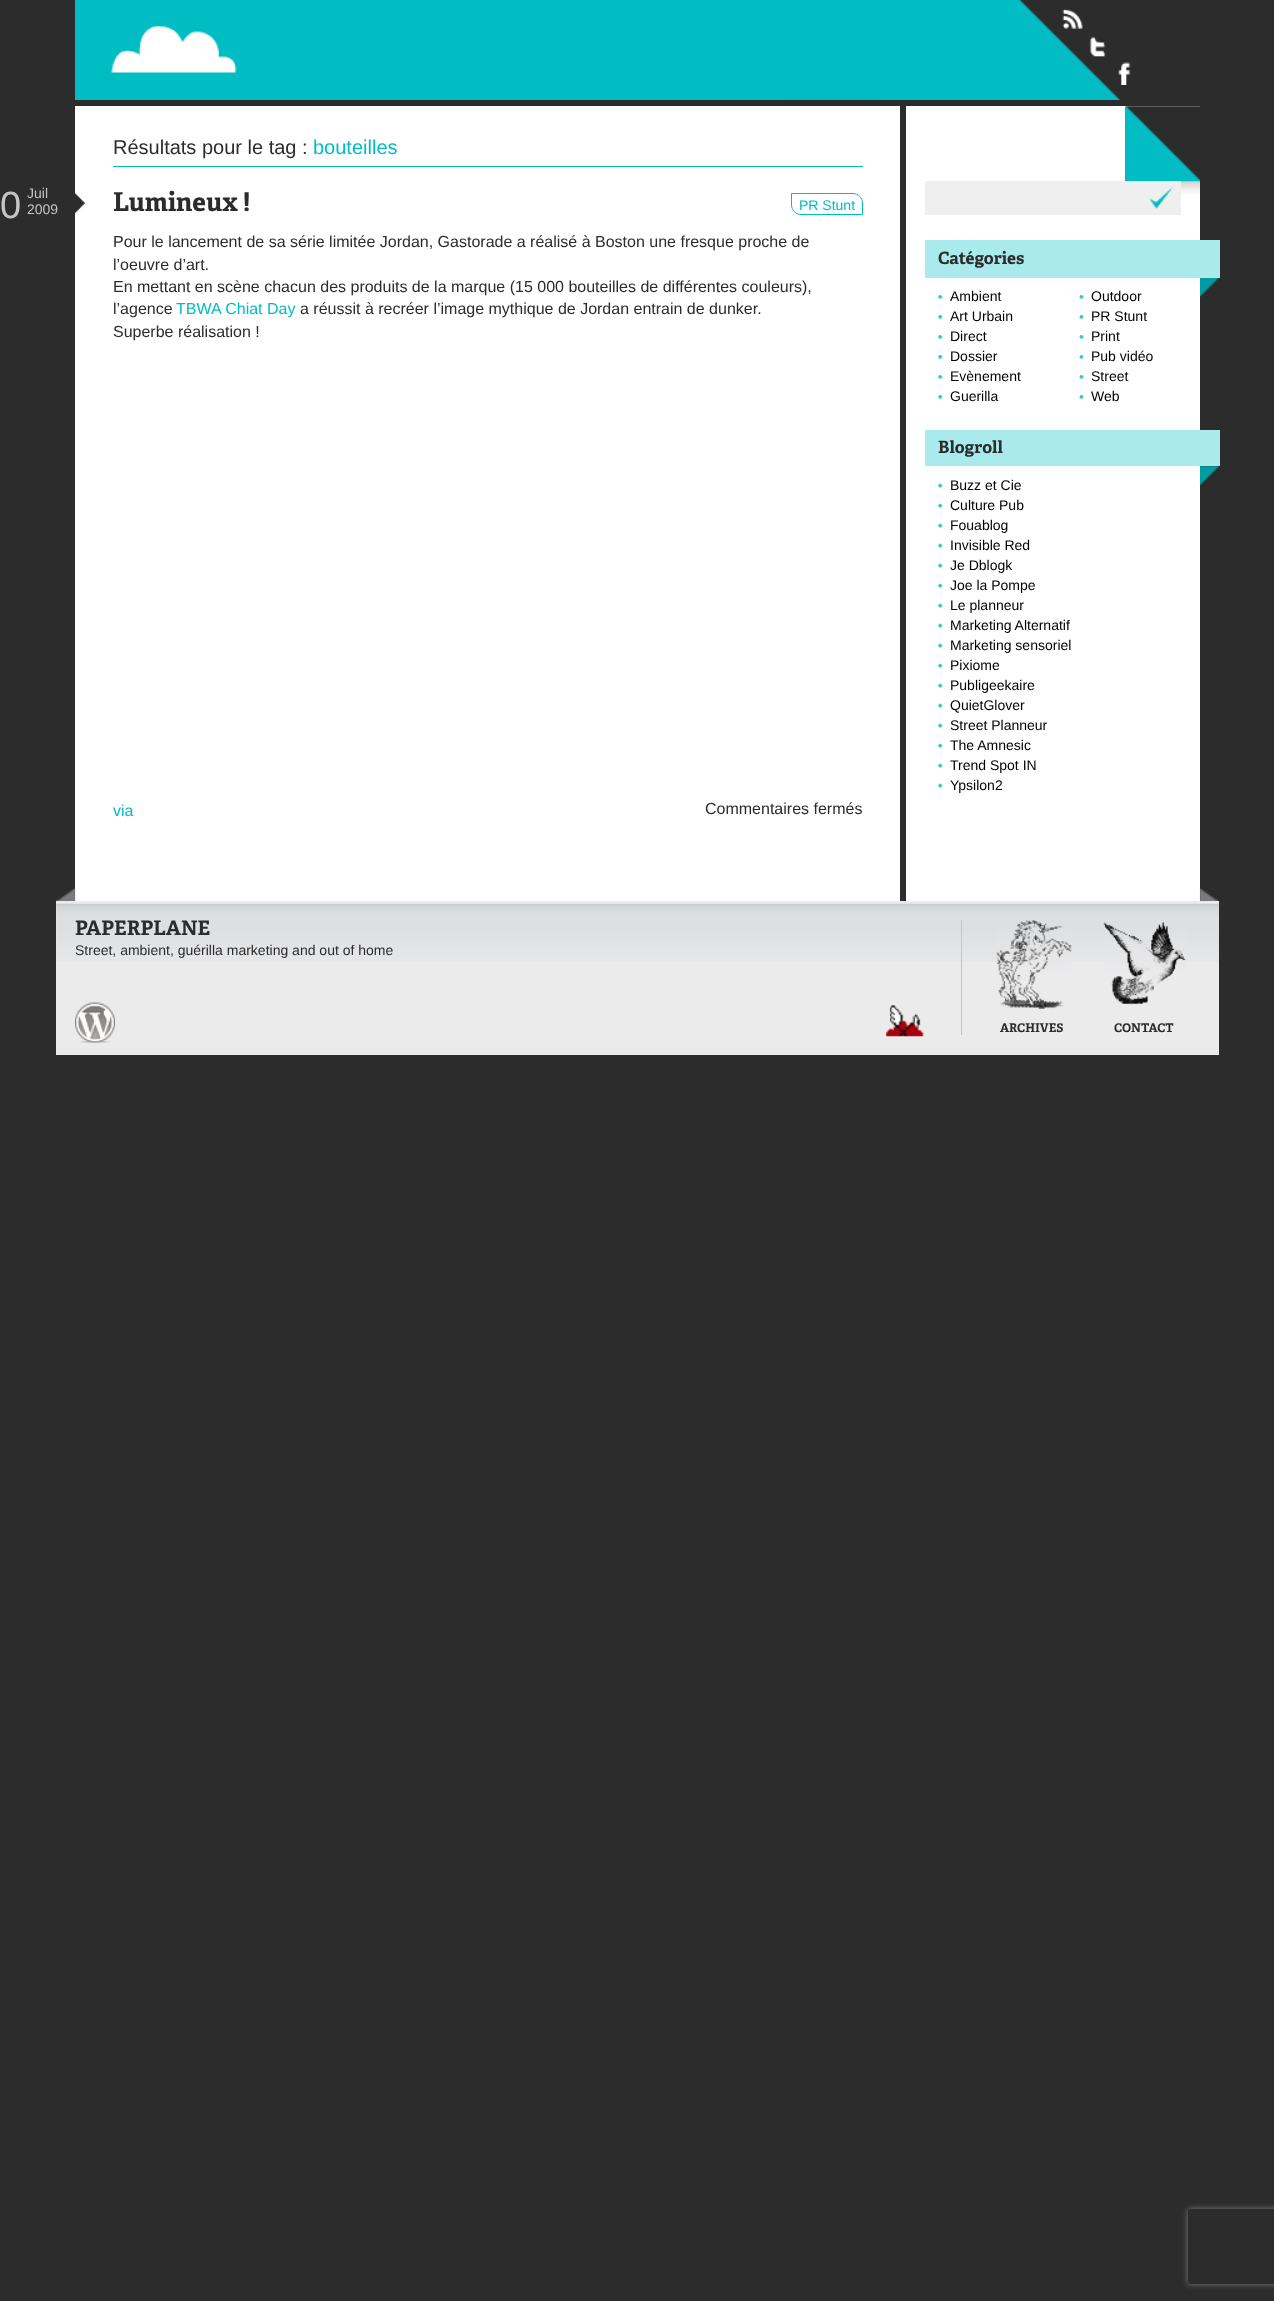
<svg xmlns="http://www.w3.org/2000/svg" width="1274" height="2301">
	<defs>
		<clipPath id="clip1"><path d="M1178 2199H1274V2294H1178ZM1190.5 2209H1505.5C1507 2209 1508 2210 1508 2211.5V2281.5C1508 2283 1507 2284 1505.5 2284H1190.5C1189 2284 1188 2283 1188 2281.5V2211.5C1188 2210 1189 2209 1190.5 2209Z" clip-rule="evenodd" /></clipPath>
	</defs>
	<rect width="100%" height="100%" fill="#2C2C2C" />
	<rect x="75" y="106" width="1125" height="795" fill="#FFFFFF" />
	<rect x="75" y="0" width="945" height="100" fill="#00BDC4" />
	<image x="1020" y="0" width="180" height="100" href="assets/img1.png" />
	<image x="104" y="26" width="770" height="71" href="assets/img2.png" />
	<image x="1062" y="9" width="21" height="20" href="assets/img3.png" />
	<image x="1089" y="37" width="17" height="20" href="assets/img4.png" />
	<image x="1118" y="62" width="13" height="23" href="assets/img5.png" />
	<rect x="900" y="106" width="6" height="795" fill="#2C2C2C" />
	<rect x="113" y="166" width="750" height="1" fill="#00BDC4" />
	<text x="113" y="154" font-family="Liberation Sans" font-size="20" fill="#2C2C2C">Résultats pour le tag :</text>
	<text x="313" y="154" font-family="Liberation Sans" font-size="20" fill="#00BDC4">bouteilles</text>
	<image x="75" y="192" width="10" height="22" href="assets/img6.png" />
	<text x="0" y="218" font-family="Liberation Sans" font-size="38" fill="#C4C4C4">0</text>
	<g font-family="Liberation Sans" font-size="14" fill="#C4C4C4">
		<text x="27" y="198">Juil</text>
		<text x="27" y="214">2009</text>
	</g>
	<text x="113" y="211" font-family="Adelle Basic" font-size="26" font-weight="700" fill="#2C2C2C">Lumineux !</text>
	<path d="M791.5 193.5H853C858 193.5 862.5 198 862.5 203V214.5H801C796 214.5 791.5 210 791.5 205Z" fill="none" stroke="#00BDC4" />
	<text x="799" y="210" font-family="Liberation Sans" font-size="14" fill="#00BDC4">PR Stunt</text>
	<g font-family="Liberation Sans" font-size="16" fill="#2C2C2C">
		<text x="113" y="247">Pour le lancement de sa série limitée Jordan, Gastorade a réalisé à Boston une fresque proche de</text>
		<text x="113" y="270">l’oeuvre d’art.</text>
		<text x="113" y="292">En mettant en scène chacun des produits de la marque (15 000 bouteilles de différentes couleurs),</text>
		<text x="113" y="314">l’agence</text>
	</g>
	<text x="176" y="314" font-family="Liberation Sans" font-size="16" fill="#00BDC4">TBWA Chiat Day</text>
	<g font-family="Liberation Sans" font-size="16" fill="#2C2C2C">
		<text x="300" y="314">a réussit à recréer l’image mythique de Jordan entrain de dunker.</text>
		<text x="113" y="337">Superbe réalisation !</text>
	</g>
	<text x="113" y="816" font-family="Liberation Sans" font-size="16" fill="#00BDC4">via</text>
	<text x="705" y="814" font-family="Liberation Sans" font-size="16" fill="#2C2C2C">Commentaires fermés</text>
	<image x="1125" y="106" width="75" height="88" href="assets/img7.png" />
	<rect x="925" y="181" width="256" height="34" fill="#EFEFEF" />
	<image x="1150" y="187" width="23" height="22" href="assets/img8.png" />
	<image x="1200" y="278" width="19" height="19" href="assets/img9.png" />
	<rect x="925" y="240" width="295" height="38" fill="#A9EBED" />
	<text x="938" y="264" font-family="Adelle Basic" font-size="17" font-weight="700" fill="#2C2C2C">Catégories</text>
	<image x="937" y="295" width="6" height="5" href="assets/img10.png" />
	<text x="950" y="301" font-family="Liberation Sans" font-size="14" fill="#000000">Ambient</text>
	<image x="1078" y="295" width="6" height="5" href="assets/img11.png" />
	<text x="1091" y="301" font-family="Liberation Sans" font-size="14" fill="#000000">Outdoor</text>
	<image x="937" y="315" width="6" height="5" href="assets/img10.png" />
	<text x="950" y="321" font-family="Liberation Sans" font-size="14" fill="#000000">Art Urbain</text>
	<image x="1078" y="315" width="6" height="5" href="assets/img11.png" />
	<text x="1091" y="321" font-family="Liberation Sans" font-size="14" fill="#000000">PR Stunt</text>
	<image x="937" y="335" width="6" height="5" href="assets/img10.png" />
	<text x="950" y="341" font-family="Liberation Sans" font-size="14" fill="#000000">Direct</text>
	<image x="1078" y="335" width="6" height="5" href="assets/img11.png" />
	<text x="1091" y="341" font-family="Liberation Sans" font-size="14" fill="#000000">Print</text>
	<image x="937" y="355" width="6" height="5" href="assets/img10.png" />
	<text x="950" y="361" font-family="Liberation Sans" font-size="14" fill="#000000">Dossier</text>
	<image x="1078" y="355" width="6" height="5" href="assets/img11.png" />
	<text x="1091" y="361" font-family="Liberation Sans" font-size="14" fill="#000000">Pub vidéo</text>
	<image x="937" y="375" width="6" height="5" href="assets/img10.png" />
	<text x="950" y="381" font-family="Liberation Sans" font-size="14" fill="#000000">Evènement</text>
	<image x="1078" y="375" width="6" height="5" href="assets/img11.png" />
	<text x="1091" y="381" font-family="Liberation Sans" font-size="14" fill="#000000">Street</text>
	<image x="937" y="395" width="6" height="5" href="assets/img10.png" />
	<text x="950" y="401" font-family="Liberation Sans" font-size="14" fill="#000000">Guerilla</text>
	<image x="1078" y="395" width="6" height="5" href="assets/img11.png" />
	<text x="1091" y="401" font-family="Liberation Sans" font-size="14" fill="#000000">Web</text>
	<image x="1200" y="466" width="19" height="20" href="assets/img12.png" />
	<rect x="925" y="430" width="295" height="36" fill="#A9EBED" />
	<text x="938" y="453" font-family="Adelle Basic" font-size="17" font-weight="700" fill="#2C2C2C">Blogroll</text>
	<image x="937" y="483" width="6" height="6" href="assets/img13.png" />
	<text x="950" y="490" font-family="Liberation Sans" font-size="14" fill="#000000">Buzz et Cie</text>
	<image x="937" y="503" width="6" height="6" href="assets/img13.png" />
	<text x="950" y="510" font-family="Liberation Sans" font-size="14" fill="#000000">Culture Pub</text>
	<image x="937" y="523" width="6" height="6" href="assets/img13.png" />
	<text x="950" y="530" font-family="Liberation Sans" font-size="14" fill="#000000">Fouablog</text>
	<image x="937" y="543" width="6" height="6" href="assets/img13.png" />
	<text x="950" y="550" font-family="Liberation Sans" font-size="14" fill="#000000">Invisible Red</text>
	<image x="937" y="563" width="6" height="6" href="assets/img13.png" />
	<text x="950" y="570" font-family="Liberation Sans" font-size="14" fill="#000000">Je Dblogk</text>
	<image x="937" y="583" width="6" height="6" href="assets/img13.png" />
	<text x="950" y="590" font-family="Liberation Sans" font-size="14" fill="#000000">Joe la Pompe</text>
	<image x="937" y="603" width="6" height="6" href="assets/img13.png" />
	<text x="950" y="610" font-family="Liberation Sans" font-size="14" fill="#000000">Le planneur</text>
	<image x="937" y="623" width="6" height="6" href="assets/img13.png" />
	<text x="950" y="630" font-family="Liberation Sans" font-size="14" fill="#000000">Marketing Alternatif</text>
	<image x="937" y="643" width="6" height="6" href="assets/img13.png" />
	<text x="950" y="650" font-family="Liberation Sans" font-size="14" fill="#000000">Marketing sensoriel</text>
	<image x="937" y="663" width="6" height="6" href="assets/img13.png" />
	<text x="950" y="670" font-family="Liberation Sans" font-size="14" fill="#000000">Pixiome</text>
	<image x="937" y="683" width="6" height="6" href="assets/img13.png" />
	<text x="950" y="690" font-family="Liberation Sans" font-size="14" fill="#000000">Publigeekaire</text>
	<image x="937" y="703" width="6" height="6" href="assets/img13.png" />
	<text x="950" y="710" font-family="Liberation Sans" font-size="14" fill="#000000">QuietGlover</text>
	<image x="937" y="723" width="6" height="6" href="assets/img13.png" />
	<text x="950" y="730" font-family="Liberation Sans" font-size="14" fill="#000000">Street Planneur</text>
	<image x="937" y="743" width="6" height="6" href="assets/img13.png" />
	<text x="950" y="750" font-family="Liberation Sans" font-size="14" fill="#000000">The Amnesic</text>
	<image x="937" y="763" width="6" height="6" href="assets/img13.png" />
	<text x="950" y="770" font-family="Liberation Sans" font-size="14" fill="#000000">Trend Spot IN</text>
	<image x="937" y="783" width="6" height="6" href="assets/img13.png" />
	<text x="950" y="790" font-family="Liberation Sans" font-size="14" fill="#000000">Ypsilon2</text>
	<image x="56" y="888" width="1162" height="13" href="assets/img14.png" />
	<rect x="56" y="901" width="1163" height="154" fill="#EBEBEB" />
	<image x="56" y="903" width="1163" height="59" href="assets/img15.png" />
	<text x="75" y="935" font-family="Adelle Basic" font-size="20" font-weight="700" fill="#2C2C2C">PAPERPLANE</text>
	<text x="75" y="955" font-family="Liberation Sans" font-size="14" fill="#2C2C2C">Street, ambient, guérilla marketing and out of home</text>
	<image x="75" y="1002" width="40" height="41" href="assets/img16.png" />
	<image x="886" y="1005" width="38" height="32" href="assets/img17.png" />
	<rect x="961" y="920" width="1" height="115" fill="#C4C4C4" />
	<image x="996" y="920" width="76" height="89" href="assets/img18.png" />
	<text x="1000" y="1032" font-family="Adelle Basic" font-size="12" font-weight="700" fill="#2C2C2C">ARCHIVES</text>
	<image x="1103" y="922" width="83" height="83" href="assets/img19.png" />
	<text x="1114" y="1032" font-family="Adelle Basic" font-size="12" font-weight="700" fill="#2C2C2C">CONTACT</text>
	<g clip-path="url(#clip1)">
		<rect x="1188" y="2209" width="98" height="75" rx="2.5" fill="#808080" filter="blur(3px)" />
	</g>
</svg>
